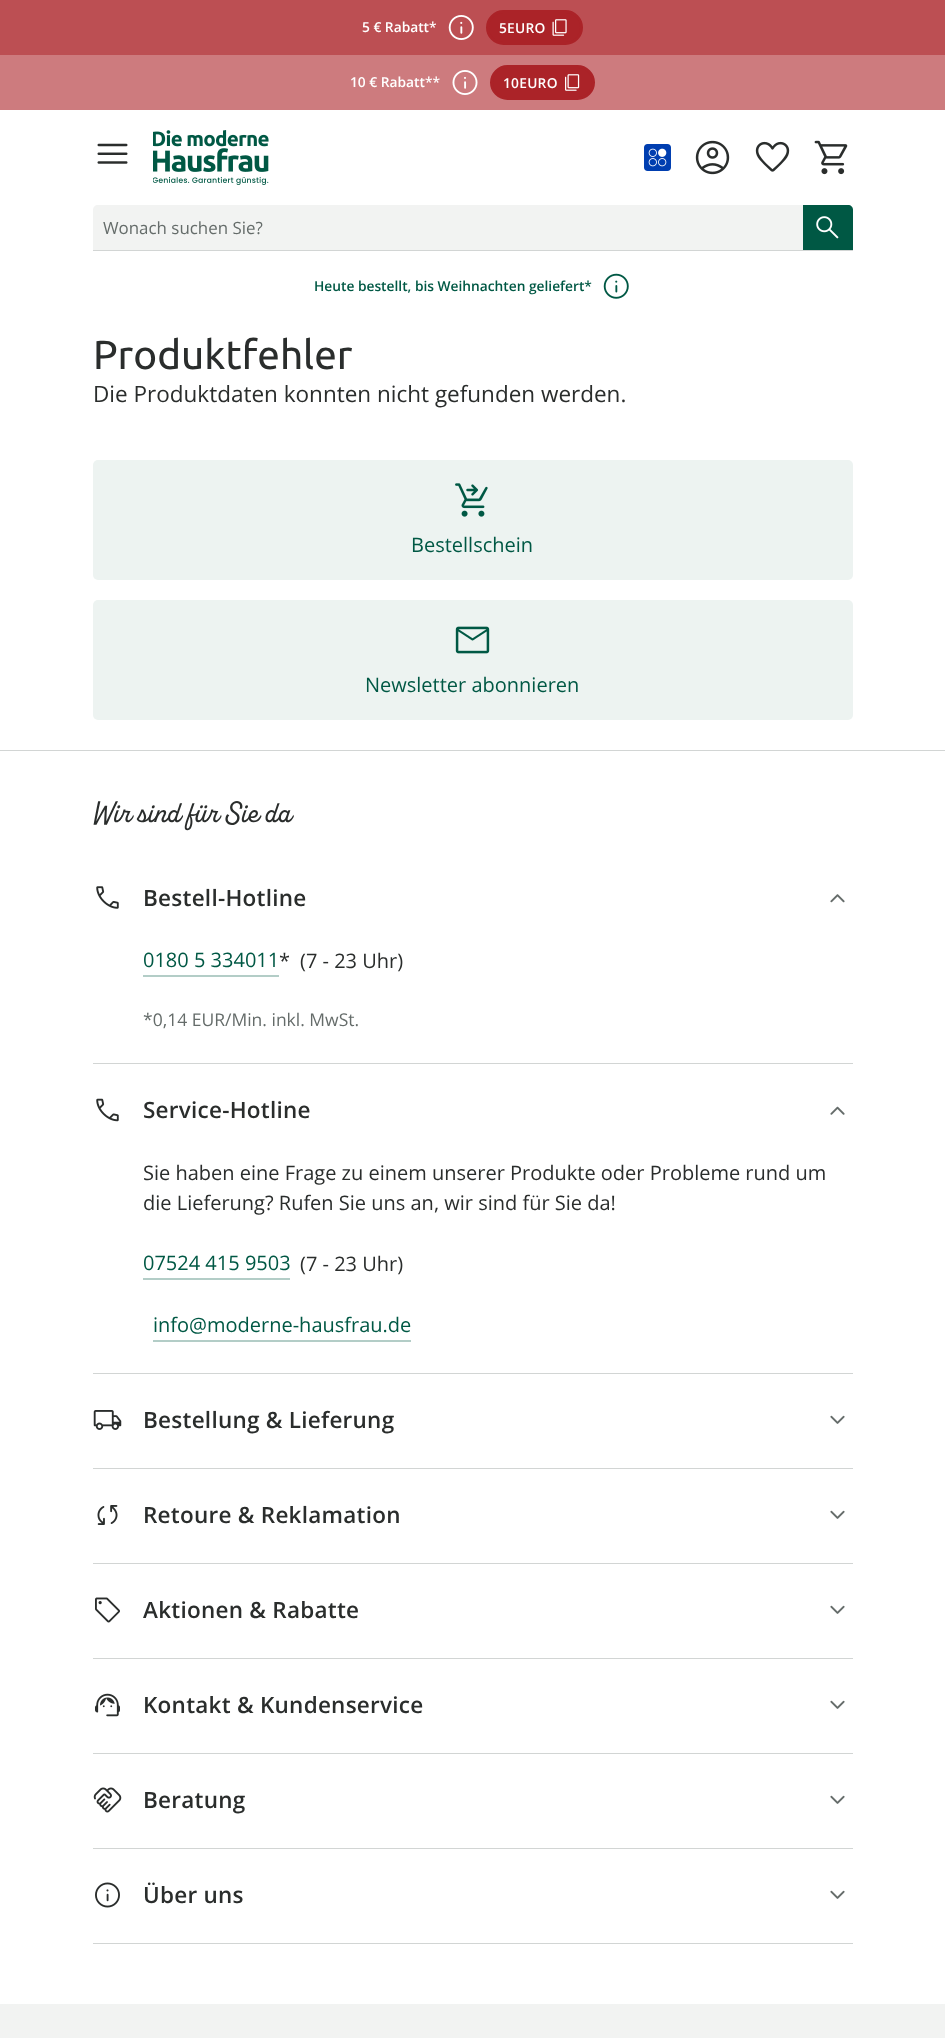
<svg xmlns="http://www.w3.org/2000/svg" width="945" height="2038">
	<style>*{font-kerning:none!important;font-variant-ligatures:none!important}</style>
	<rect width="100%" height="100%" fill="#FFFFFF" />
	<rect x="0" y="0" width="945" height="55" fill="#BC4F53" />
	<text x="362" y="32" font-family="Open Sans" font-size="13.75" font-weight="600" fill="#FFFFFF">5 € Rabatt*</text>
	<image x="448" y="15" width="26" height="25" href="assets/img1.png" />
	<rect x="487.5" y="11.5" width="94" height="32" rx="16" fill="#AB2328" stroke="#AB2328" stroke-width="3" />
	<text x="499" y="33" font-family="Open Sans" font-size="13.75" font-weight="600" letter-spacing="0.25" fill="#FFFFFF">5EURO</text>
	<image x="552" y="19" width="15" height="17" href="assets/img2.png" />
	<rect x="0" y="55" width="945" height="55" fill="#CD7B7E" />
	<text x="350" y="87" font-family="Open Sans" font-size="13.75" font-weight="600" fill="#FFFFFF">10 € Rabatt**</text>
	<image x="452" y="70" width="26" height="25" href="assets/img3.png" />
	<rect x="491.5" y="66.5" width="102" height="32" rx="16" fill="#AB2328" stroke="#AB2328" stroke-width="3" />
	<text x="503" y="88" font-family="Open Sans" font-size="13.75" font-weight="600" letter-spacing="0.25" fill="#FFFFFF">10EURO</text>
	<image x="565" y="74" width="15" height="17" href="assets/img4.png" />
	<image x="97" y="143" width="31" height="21" href="assets/img5.png" />
	<image x="153" y="130" width="116" height="55" href="assets/img6.png" />
	<image x="644" y="144" width="27" height="27" href="assets/img7.png" />
	<image x="695" y="140" width="35" height="35" href="assets/img8.png" />
	<image x="755" y="141" width="35" height="31" href="assets/img9.png" />
	<image x="814" y="140" width="34" height="35" href="assets/img10.png" />
	<path d="M98 205H848C851 205 853 207 853 210V250H93V210C93 207 95 205 98 205Z" fill="#F2F3F2" />
	<rect x="93" y="250" width="760" height="1" fill="#D2D5D4" />
	<text x="103" y="234" font-family="Open Sans" font-size="16.9" fill="#656C6A">Wonach suchen Sie?</text>
	<path d="M803 205H848C851 205 853 207 853 210V250H803Z" fill="#005844" />
	<image x="816" y="216" width="23" height="23" href="assets/img11.png" />
	<text x="314" y="291" font-family="Open Sans" font-size="13.75" font-weight="600" fill="#005844">Heute bestellt, bis Weihnachten geliefert*</text>
	<image x="603" y="273" width="26" height="26" href="assets/img12.png" />
	<text x="93" y="369" font-family="Ubuntu" font-size="40.5" fill="#2A2D2C">Produktfehler</text>
	<text x="93" y="402" font-family="Open Sans" font-size="22.5" fill="#2A2D2C">Die Produktdaten konnten nicht gefunden werden.</text>
	<rect x="93" y="460" width="760" height="120" rx="5" fill="#EDF3F1" />
	<image x="455" y="483" width="33" height="34" href="assets/img13.png" />
	<text x="411" y="552" font-family="Open Sans" font-size="20" fill="#005844">Bestellschein</text>
	<rect x="93" y="600" width="760" height="120" rx="5" fill="#EDF3F1" />
	<image x="455" y="626" width="35" height="28" href="assets/img14.png" />
	<text x="365" y="692" font-family="Open Sans" font-size="20" fill="#005844">Newsletter abonnieren</text>
	<rect x="0" y="750" width="945" height="1" fill="#D2D5D4" />
	<text x="93" y="822" font-family="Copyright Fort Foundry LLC" font-size="30" font-weight="500" fill="#2A2D2C">Wir sind für Sie da</text>
	<rect x="93" y="1063" width="760" height="1" fill="#D2D5D4" />
	<image x="96" y="886" width="23" height="23" href="assets/img15.png" />
	<text x="143" y="906" font-family="Open Sans" font-size="22.5" font-weight="600" letter-spacing="0.25" fill="#2A2D2C">Bestell-Hotline</text>
	<image x="830" y="894" width="15" height="9" href="assets/img16.png" />
	<rect x="143" y="975" width="136" height="2" fill="#B3CDC7" />
	<text x="143" y="967" font-family="Open Sans" font-size="20" fill="#005844">0180 5 334011</text>
	<g font-family="Open Sans" font-size="20" fill="#2A2D2C">
		<text x="279" y="968">*</text>
		<text x="300" y="968">(7 - 23 Uhr)</text>
	</g>
	<text x="143" y="1026" font-family="Open Sans" font-size="17.5" fill="#656C6A">*0,14 EUR/Min. inkl. MwSt.</text>
	<rect x="93" y="1373" width="760" height="1" fill="#D2D5D4" />
	<image x="96" y="1098" width="23" height="24" href="assets/img17.png" />
	<text x="143" y="1118" font-family="Open Sans" font-size="22.5" font-weight="600" letter-spacing="0.25" fill="#2A2D2C">Service-Hotline</text>
	<image x="830" y="1106" width="15" height="9" href="assets/img18.png" />
	<g font-family="Open Sans" font-size="20" fill="#2A2D2C">
		<text x="143" y="1180">Sie haben eine Frage zu einem unserer Produkte oder Probleme rund um</text>
		<text x="143" y="1210">die Lieferung? Rufen Sie uns an, wir sind für Sie da!</text>
	</g>
	<rect x="143" y="1278" width="147" height="2" fill="#B3CDC7" />
	<text x="143" y="1270" font-family="Open Sans" font-size="20" fill="#005844">07524 415 9503</text>
	<text x="300" y="1271" font-family="Open Sans" font-size="20" fill="#2A2D2C">(7 - 23 Uhr)</text>
	<rect x="153" y="1340" width="258" height="2" fill="#B3CDC7" />
	<text x="153" y="1332" font-family="Open Sans" font-size="20" fill="#005844">info@moderne-hausfrau.de</text>
	<rect x="93" y="1468" width="760" height="1" fill="#D2D5D4" />
	<image x="93" y="1410" width="29" height="20" href="assets/img19.png" />
	<text x="143" y="1428" font-family="Open Sans" font-size="22.5" font-weight="600" letter-spacing="0.25" fill="#2A2D2C">Bestellung &amp; Lieferung</text>
	<image x="830" y="1415" width="15" height="9" href="assets/img20.png" />
	<rect x="93" y="1563" width="760" height="1" fill="#D2D5D4" />
	<image x="97" y="1505" width="21" height="20" href="assets/img21.png" />
	<text x="143" y="1523" font-family="Open Sans" font-size="22.5" font-weight="600" letter-spacing="0.25" fill="#2A2D2C">Retoure &amp; Reklamation</text>
	<image x="830" y="1510" width="15" height="9" href="assets/img20.png" />
	<rect x="93" y="1658" width="760" height="1" fill="#D2D5D4" />
	<image x="95" y="1597" width="25" height="26" href="assets/img22.png" />
	<text x="143" y="1618" font-family="Open Sans" font-size="22.5" font-weight="600" letter-spacing="0.25" fill="#2A2D2C">Aktionen &amp; Rabatte</text>
	<image x="830" y="1605" width="15" height="9" href="assets/img20.png" />
	<rect x="93" y="1753" width="760" height="1" fill="#D2D5D4" />
	<image x="95" y="1693" width="25" height="24" href="assets/img23.png" />
	<text x="143" y="1713" font-family="Open Sans" font-size="22.5" font-weight="600" letter-spacing="0.25" fill="#2A2D2C">Kontakt &amp; Kundenservice</text>
	<image x="830" y="1700" width="15" height="9" href="assets/img20.png" />
	<rect x="93" y="1848" width="760" height="1" fill="#D2D5D4" />
	<image x="93" y="1787" width="29" height="26" href="assets/img24.png" />
	<text x="143" y="1808" font-family="Open Sans" font-size="22.5" font-weight="600" letter-spacing="0.25" fill="#2A2D2C">Beratung</text>
	<image x="830" y="1795" width="15" height="9" href="assets/img20.png" />
	<rect x="93" y="1943" width="760" height="1" fill="#D2D5D4" />
	<image x="95" y="1882" width="25" height="26" href="assets/img25.png" />
	<text x="143" y="1903" font-family="Open Sans" font-size="22.5" font-weight="600" letter-spacing="0.25" fill="#2A2D2C">Über uns</text>
	<image x="830" y="1890" width="15" height="9" href="assets/img20.png" />
	<rect x="0" y="2004" width="945" height="34" fill="#F2F3F2" />
</svg>
